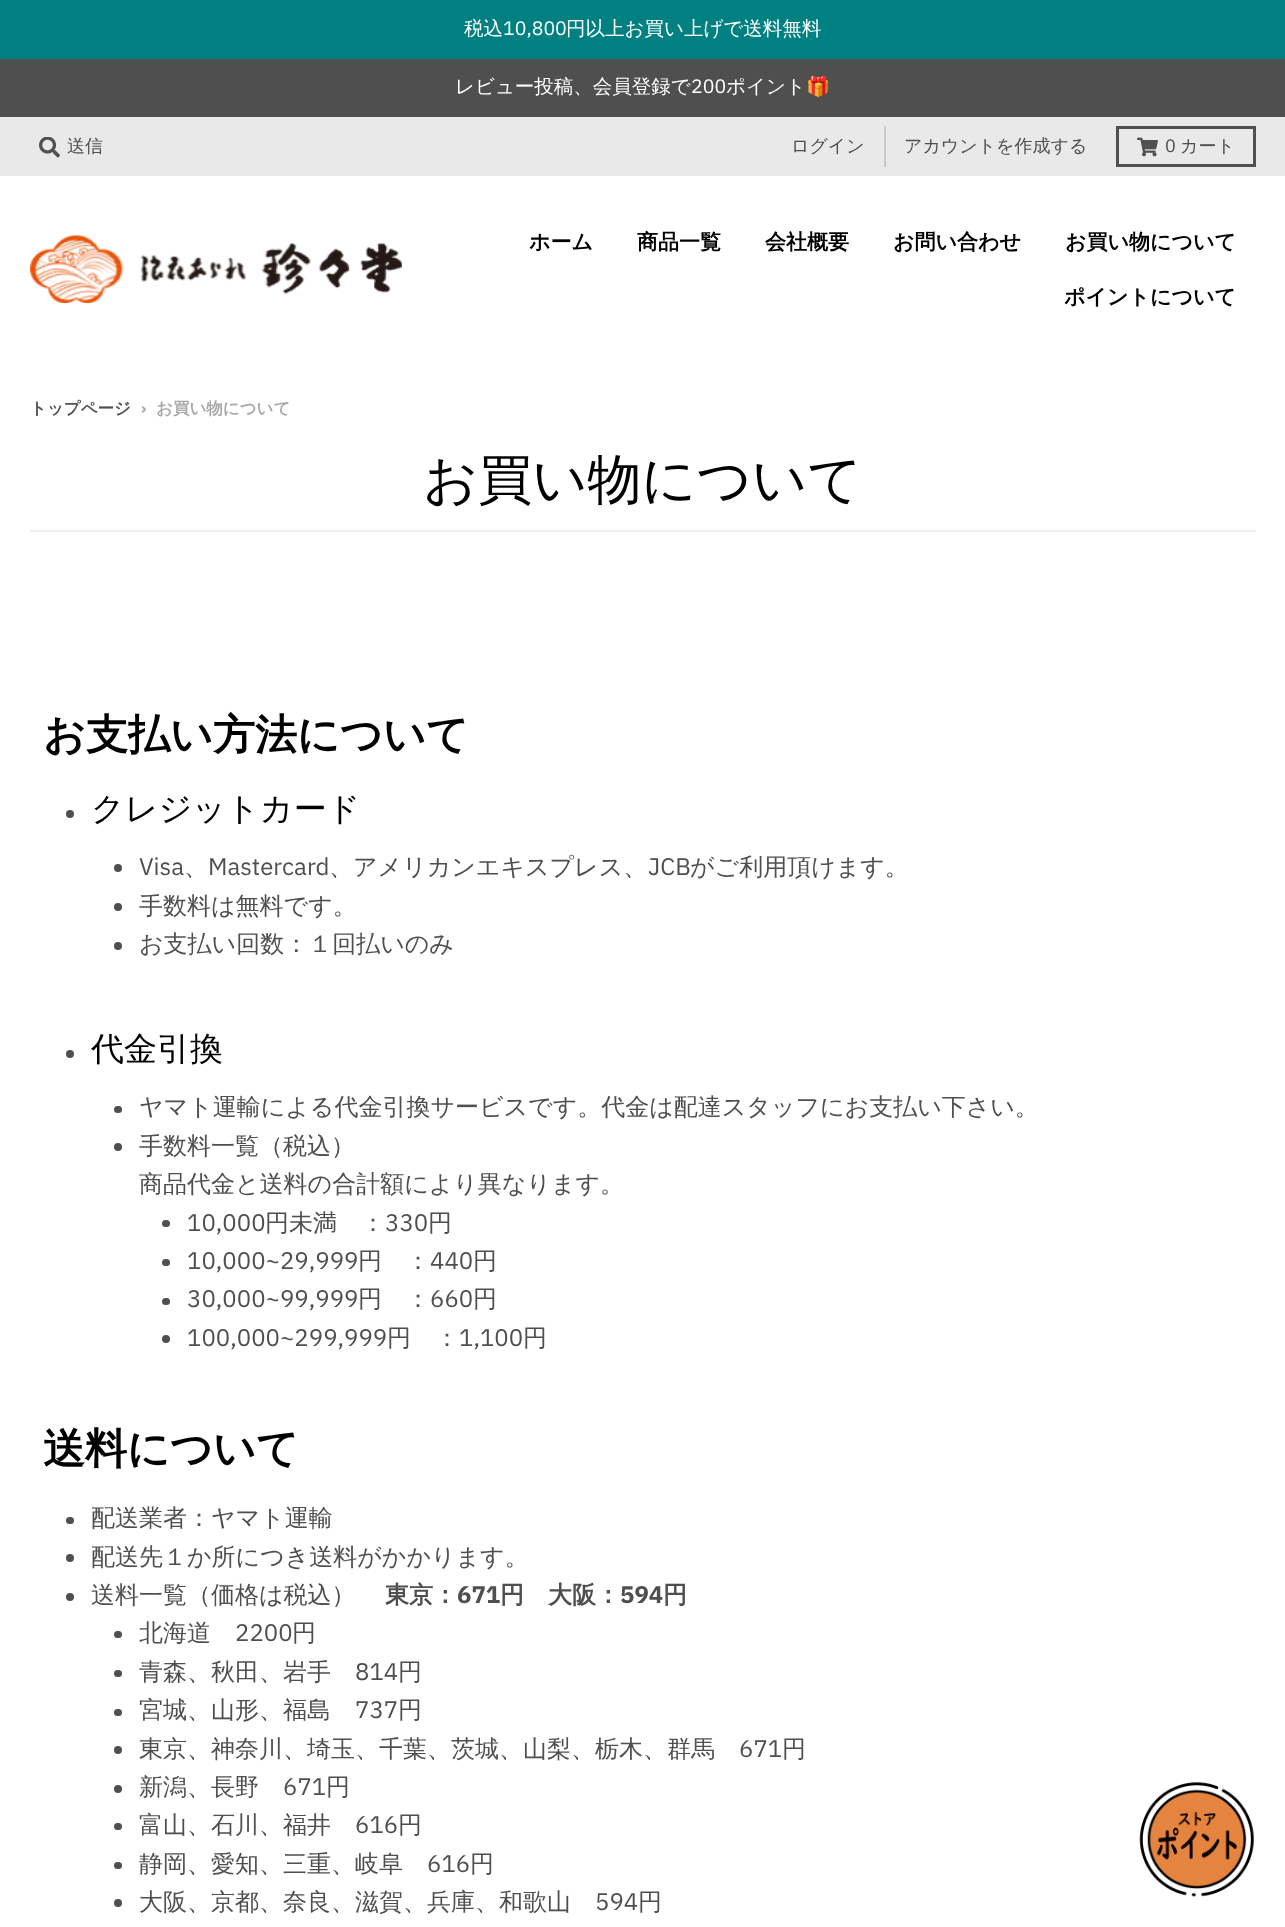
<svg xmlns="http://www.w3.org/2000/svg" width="1285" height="1927">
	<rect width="100%" height="100%" fill="#FFFFFF" />
	<rect x="0" y="0" width="1285" height="59" fill="#008080" />
	<text x="464" y="35" font-family="WenQuanYi Zen Hei" font-size="19.5" font-weight="500" fill="#FFFFFF">税込</text>
	<text x="503" y="35" font-family="IBM Plex Sans" font-size="19.5" fill="#FFFFFF">10,800</text>
	<text x="566" y="35" font-family="WenQuanYi Zen Hei" font-size="19.5" font-weight="500" fill="#FFFFFF">円以上お買い上げで送料無料</text>
	<rect x="0" y="59" width="1285" height="58" fill="#4F4F4F" />
	<text x="455" y="93" font-family="WenQuanYi Zen Hei" font-size="19.5" font-weight="500" fill="#FFFFFF">レビュー投稿、会員登録で</text>
	<text x="691" y="93" font-family="IBM Plex Sans" font-size="19.5" fill="#FFFFFF">200</text>
	<text x="726" y="93" font-family="WenQuanYi Zen Hei" font-size="19.5" font-weight="500" fill="#FFFFFF">ポイント</text>
	<text x="806" y="93" font-family="Noto Color Emoji" font-size="19.5" fill="#FFFFFF">🎁</text>
	<rect x="0" y="117" width="1285" height="59" fill="#E9E9E9" />
	<image x="39" y="137" width="21" height="21" href="assets/img1.png" />
	<text x="67" y="152" font-family="WenQuanYi Zen Hei" font-size="18" font-weight="500" fill="#4F4F4F">送信</text>
	<rect x="884" y="126" width="2" height="41" fill="#CACACA" />
	<g font-family="WenQuanYi Zen Hei" font-size="18" font-weight="500" fill="#4F4F4F">
		<text x="791" y="152">ログイン</text>
		<text x="904" y="152">アカウントを作成する</text>
	</g>
	<rect x="1117.5" y="127.5" width="137" height="38" fill="none" stroke="#505050" stroke-width="3" />
	<image x="1137" y="137" width="21" height="20" href="assets/img2.png" />
	<text x="1165" y="152" font-family="IBM Plex Sans" font-size="18" fill="#4F4F4F">0</text>
	<text x="1180" y="152" font-family="WenQuanYi Zen Hei" font-size="18" font-weight="500" fill="#4F4F4F">カート</text>
	<image x="30" y="235" width="372" height="68" href="assets/img3.png" />
	<g font-family="WenQuanYi Zen Hei" font-size="21" font-weight="700" fill="#000000">
		<text x="529" y="249">ホーム</text>
		<text x="637" y="249">商品一覧</text>
		<text x="765" y="249">会社概要</text>
		<text x="893" y="249">お問い合わせ</text>
		<text x="1065" y="249">お買い物について</text>
		<text x="1064" y="304">ポイントについて</text>
	</g>
	<text x="30" y="414" font-family="WenQuanYi Zen Hei" font-size="16.5" font-weight="700" fill="#4F4F4F">トップページ</text>
	<text x="141" y="414" font-family="IBM Plex Sans" font-size="16.5" font-weight="700" fill="#A7A7A7">›</text>
	<text x="156" y="414" font-family="WenQuanYi Zen Hei" font-size="16.5" font-weight="700" fill="#A7A7A7">お買い物について</text>
	<rect x="30" y="530" width="1226" height="2" fill="#EDEDED" />
	<text x="423" y="498" font-family="WenQuanYi Zen Hei" font-size="54" font-weight="500" fill="#000000">お買い物について</text>
	<text x="43" y="749" font-family="WenQuanYi Zen Hei" font-size="42" font-weight="700" fill="#000000">お支払い方法について</text>
	<circle cx="70" cy="814" r="4" fill="#4F4F4F" />
	<text x="91" y="820" font-family="WenQuanYi Zen Hei" font-size="33" font-weight="500" fill="#000000">クレジットカード</text>
	<circle cx="118" cy="868" r="4" fill="#4F4F4F" />
	<g font-family="IBM Plex Sans" font-size="24" fill="#4F4F4F">
		<text x="139" y="875">Visa</text>
		<text x="208" y="875">Mastercard</text>
	</g>
	<text x="329" y="875" font-family="WenQuanYi Zen Hei" font-size="24" font-weight="500" fill="#4F4F4F">、アメリカンエキスプレス、</text>
	<text x="648" y="875" font-family="IBM Plex Sans" font-size="24" fill="#4F4F4F">JCB</text>
	<g font-family="WenQuanYi Zen Hei" font-size="24" font-weight="500" fill="#4F4F4F">
		<text x="690" y="875">がご利用頂けます。</text>
		<text x="184" y="875">、</text>
	</g>
	<circle cx="118" cy="907" r="4" fill="#4F4F4F" />
	<text x="139" y="914" font-family="WenQuanYi Zen Hei" font-size="24" font-weight="500" fill="#4F4F4F">手数料は無料です。</text>
	<circle cx="118" cy="946" r="4" fill="#4F4F4F" />
	<text x="139" y="952" font-family="WenQuanYi Zen Hei" font-size="24" font-weight="500" fill="#4F4F4F">お支払い回数：１回払いのみ</text>
	<circle cx="70" cy="1054" r="4" fill="#4F4F4F" />
	<text x="91" y="1060" font-family="WenQuanYi Zen Hei" font-size="33" font-weight="500" fill="#000000">代金引換</text>
	<rect x="114" y="1106" width="8" height="7" rx="3.5" fill="#4F4F4F" />
	<text x="139" y="1115" font-family="WenQuanYi Zen Hei" font-size="24" font-weight="500" fill="#4F4F4F">ヤマト運輸による代金引換サービスです。代金は配達スタッフにお支払い下さい。</text>
	<circle cx="118" cy="1147" r="4" fill="#4F4F4F" />
	<g font-family="WenQuanYi Zen Hei" font-size="24" font-weight="500" fill="#4F4F4F">
		<text x="139" y="1154">手数料一覧（税込）</text>
		<text x="139" y="1192">商品代金と送料の合計額により異なります。</text>
	</g>
	<rect x="162" y="1220" width="8" height="7" rx="3.5" fill="#4F4F4F" />
	<text x="187" y="1231" font-family="IBM Plex Sans" font-size="24" fill="#4F4F4F">10,000</text>
	<text x="265" y="1231" font-family="WenQuanYi Zen Hei" font-size="24" font-weight="500" fill="#4F4F4F">円未満　：</text>
	<text x="385" y="1231" font-family="IBM Plex Sans" font-size="24" fill="#4F4F4F">330</text>
	<text x="428" y="1231" font-family="WenQuanYi Zen Hei" font-size="24" font-weight="500" fill="#4F4F4F">円</text>
	<rect x="162" y="1259" width="8" height="7" rx="3.5" fill="#4F4F4F" />
	<text x="187" y="1269" font-family="IBM Plex Sans" font-size="24" fill="#4F4F4F">10,000~29,999</text>
	<text x="358" y="1269" font-family="WenQuanYi Zen Hei" font-size="24" font-weight="500" fill="#4F4F4F">円　：</text>
	<text x="430" y="1269" font-family="IBM Plex Sans" font-size="24" fill="#4F4F4F">440</text>
	<text x="473" y="1269" font-family="WenQuanYi Zen Hei" font-size="24" font-weight="500" fill="#4F4F4F">円</text>
	<rect x="162" y="1298" width="8" height="7" rx="3.5" fill="#4F4F4F" />
	<text x="187" y="1307" font-family="IBM Plex Sans" font-size="24" fill="#4F4F4F">30,000~99,999</text>
	<text x="358" y="1307" font-family="WenQuanYi Zen Hei" font-size="24" font-weight="500" fill="#4F4F4F">円　：</text>
	<text x="430" y="1307" font-family="IBM Plex Sans" font-size="24" fill="#4F4F4F">660</text>
	<text x="473" y="1307" font-family="WenQuanYi Zen Hei" font-size="24" font-weight="500" fill="#4F4F4F">円</text>
	<circle cx="166" cy="1339" r="4" fill="#4F4F4F" />
	<text x="187" y="1346" font-family="IBM Plex Sans" font-size="24" fill="#4F4F4F">100,000~299,999</text>
	<text x="387" y="1346" font-family="WenQuanYi Zen Hei" font-size="24" font-weight="500" fill="#4F4F4F">円　：</text>
	<text x="459" y="1346" font-family="IBM Plex Sans" font-size="24" fill="#4F4F4F">1,100</text>
	<text x="523" y="1346" font-family="WenQuanYi Zen Hei" font-size="24" font-weight="500" fill="#4F4F4F">円</text>
	<text x="43" y="1463" font-family="WenQuanYi Zen Hei" font-size="42" font-weight="700" fill="#000000">送料について</text>
	<rect x="66" y="1517" width="8" height="7" rx="3.5" fill="#4F4F4F" />
	<text x="91" y="1526" font-family="WenQuanYi Zen Hei" font-size="24" font-weight="500" fill="#4F4F4F">配送業者：ヤマト運輸</text>
	<circle cx="70" cy="1558" r="4" fill="#4F4F4F" />
	<text x="91" y="1565" font-family="WenQuanYi Zen Hei" font-size="24" font-weight="500" fill="#4F4F4F">配送先１か所につき送料がかかります。</text>
	<circle cx="70" cy="1597" r="4" fill="#4F4F4F" />
	<text x="91" y="1603" font-family="WenQuanYi Zen Hei" font-size="24" font-weight="500" fill="#4F4F4F">送料一覧（価格は税込）</text>
	<text x="385" y="1603" font-family="WenQuanYi Zen Hei" font-size="24" font-weight="700" fill="#4F4F4F">東京：</text>
	<text x="457" y="1603" font-family="IBM Plex Sans" font-size="24" font-weight="700" fill="#4F4F4F">671</text>
	<text x="500" y="1603" font-family="WenQuanYi Zen Hei" font-size="24" font-weight="700" fill="#4F4F4F">円　大阪：</text>
	<text x="620" y="1603" font-family="IBM Plex Sans" font-size="24" font-weight="700" fill="#4F4F4F">594</text>
	<text x="663" y="1603" font-family="WenQuanYi Zen Hei" font-size="24" font-weight="700" fill="#4F4F4F">円</text>
	<rect x="114" y="1631" width="8" height="7" rx="3.5" fill="#4F4F4F" />
	<text x="139" y="1641" font-family="WenQuanYi Zen Hei" font-size="24" font-weight="500" fill="#4F4F4F">北海道</text>
	<text x="235" y="1641" font-family="IBM Plex Sans" font-size="24" fill="#4F4F4F">2200</text>
	<text x="292" y="1641" font-family="WenQuanYi Zen Hei" font-size="24" font-weight="500" fill="#4F4F4F">円</text>
	<rect x="114" y="1670" width="8" height="7" rx="3.5" fill="#4F4F4F" />
	<text x="139" y="1680" font-family="WenQuanYi Zen Hei" font-size="24" font-weight="500" fill="#4F4F4F">青森、秋田、岩手</text>
	<text x="355" y="1680" font-family="IBM Plex Sans" font-size="24" fill="#4F4F4F">814</text>
	<text x="398" y="1680" font-family="WenQuanYi Zen Hei" font-size="24" font-weight="500" fill="#4F4F4F">円</text>
	<rect x="114" y="1709" width="8" height="7" rx="3.5" fill="#4F4F4F" />
	<text x="139" y="1718" font-family="WenQuanYi Zen Hei" font-size="24" font-weight="500" fill="#4F4F4F">宮城、山形、福島</text>
	<text x="355" y="1718" font-family="IBM Plex Sans" font-size="24" fill="#4F4F4F">737</text>
	<text x="398" y="1718" font-family="WenQuanYi Zen Hei" font-size="24" font-weight="500" fill="#4F4F4F">円</text>
	<circle cx="118" cy="1750" r="4" fill="#4F4F4F" />
	<text x="139" y="1757" font-family="WenQuanYi Zen Hei" font-size="24" font-weight="500" fill="#4F4F4F">東京、神奈川、埼玉、千葉、茨城、山梨、栃木、群馬</text>
	<text x="739" y="1757" font-family="IBM Plex Sans" font-size="24" fill="#4F4F4F">671</text>
	<text x="782" y="1757" font-family="WenQuanYi Zen Hei" font-size="24" font-weight="500" fill="#4F4F4F">円</text>
	<circle cx="118" cy="1789" r="4" fill="#4F4F4F" />
	<text x="139" y="1795" font-family="WenQuanYi Zen Hei" font-size="24" font-weight="500" fill="#4F4F4F">新潟、長野</text>
	<text x="283" y="1795" font-family="IBM Plex Sans" font-size="24" fill="#4F4F4F">671</text>
	<text x="326" y="1795" font-family="WenQuanYi Zen Hei" font-size="24" font-weight="500" fill="#4F4F4F">円</text>
	<rect x="114" y="1823" width="8" height="7" rx="3.5" fill="#4F4F4F" />
	<text x="139" y="1833" font-family="WenQuanYi Zen Hei" font-size="24" font-weight="500" fill="#4F4F4F">富山、石川、福井</text>
	<text x="355" y="1833" font-family="IBM Plex Sans" font-size="24" fill="#4F4F4F">616</text>
	<text x="398" y="1833" font-family="WenQuanYi Zen Hei" font-size="24" font-weight="500" fill="#4F4F4F">円</text>
	<rect x="114" y="1862" width="8" height="7" rx="3.5" fill="#4F4F4F" />
	<text x="139" y="1872" font-family="WenQuanYi Zen Hei" font-size="24" font-weight="500" fill="#4F4F4F">静岡、愛知、三重、岐阜</text>
	<text x="427" y="1872" font-family="IBM Plex Sans" font-size="24" fill="#4F4F4F">616</text>
	<text x="470" y="1872" font-family="WenQuanYi Zen Hei" font-size="24" font-weight="500" fill="#4F4F4F">円</text>
	<circle cx="118" cy="1903" r="4" fill="#4F4F4F" />
	<text x="139" y="1910" font-family="WenQuanYi Zen Hei" font-size="24" font-weight="500" fill="#4F4F4F">大阪、京都、奈良、滋賀、兵庫、和歌山</text>
	<text x="595" y="1910" font-family="IBM Plex Sans" font-size="24" fill="#4F4F4F">594</text>
	<text x="638" y="1910" font-family="WenQuanYi Zen Hei" font-size="24" font-weight="500" fill="#4F4F4F">円</text>
	<image x="1139" y="1782" width="115" height="115" href="assets/img4.png" />
</svg>
